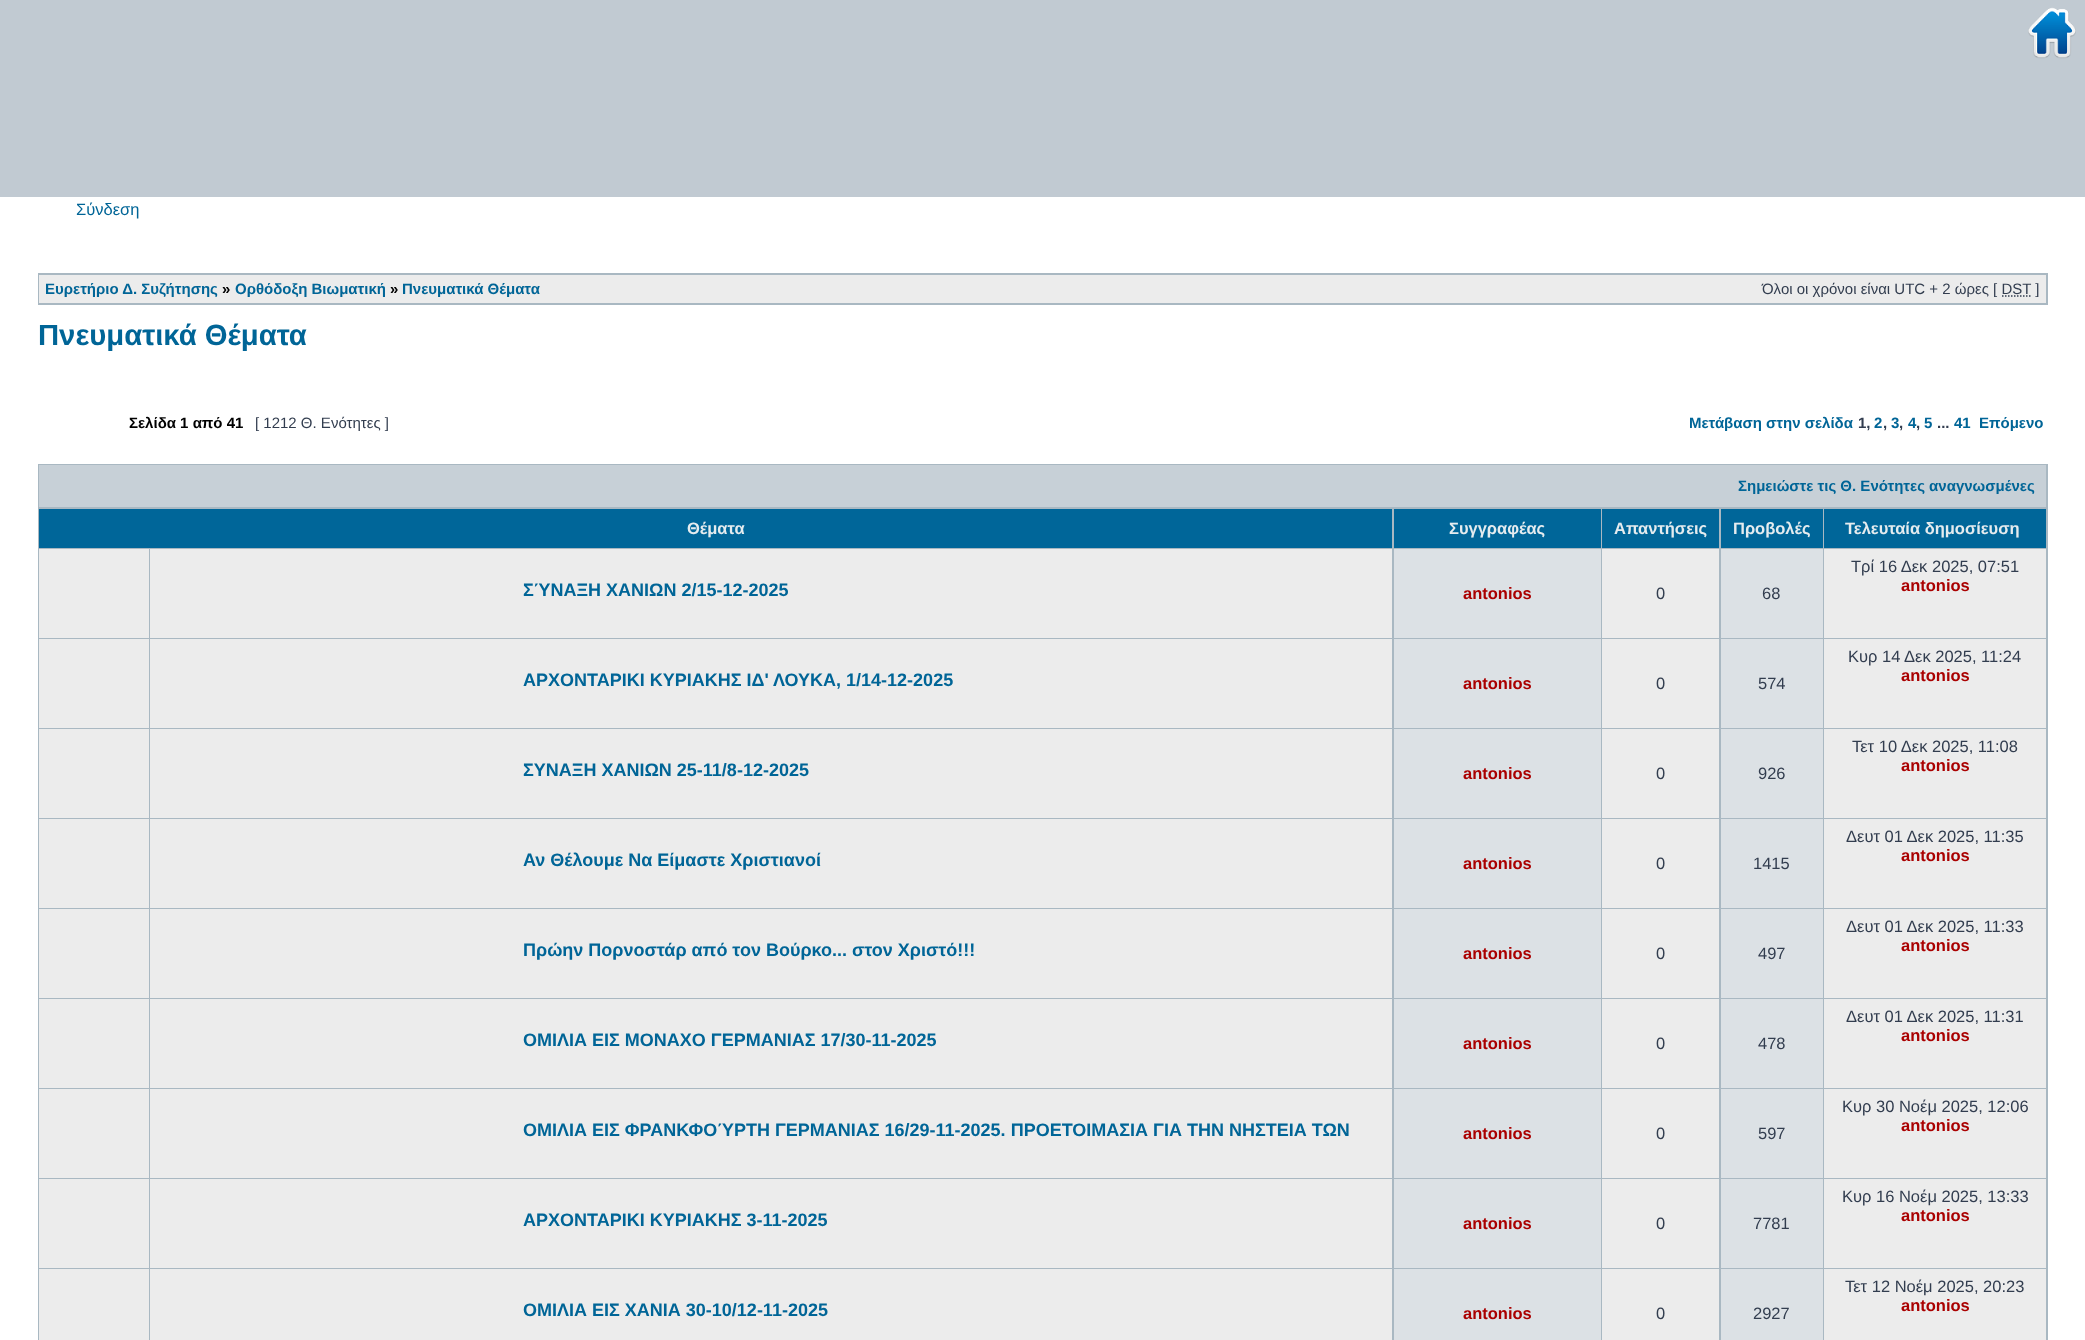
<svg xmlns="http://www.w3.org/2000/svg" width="2085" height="1340">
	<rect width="100%" height="100%" fill="#FFFFFF" />
	<rect x="0" y="0" width="2085" height="197" fill="#C1CAD2" />
	<image x="2028" y="7" width="48" height="52" href="assets/img1.png" />
	<text x="76" y="215" font-family="Liberation Sans" font-size="16.5" fill="#006597">Σύνδεση</text>
	<rect x="38" y="273" width="2010" height="32" fill="#A9B8C2" />
	<rect x="39" y="275" width="2007" height="28" fill="#ECECEC" />
	<text x="45" y="294" font-family="Liberation Sans" font-size="15" font-weight="700" fill="#006597">Ευρετήριο Δ. Συζήτησης</text>
	<text x="222" y="294" font-family="Liberation Sans" font-size="15" font-weight="700" fill="#000000">»</text>
	<text x="235" y="294" font-family="Liberation Sans" font-size="15" font-weight="700" fill="#006597">Ορθόδοξη Βιωματική</text>
	<text x="390" y="294" font-family="Liberation Sans" font-size="15" font-weight="700" fill="#000000">»</text>
	<text x="402" y="294" font-family="Liberation Sans" font-size="15" font-weight="700" fill="#006597">Πνευματικά Θέματα</text>
	<text x="1762" y="294" font-family="Liberation Sans" font-size="15" fill="#323D4F">Όλοι οι χρόνοι είναι UTC + 2 ώρες [ DST ]</text>
	<path d="M2002 296H2031.5" fill="none" stroke="#323D4F" stroke-width="1.5" stroke-dasharray="1.5 1.5" />
	<text x="38" y="345" font-family="Liberation Sans" font-size="29.25" font-weight="700" fill="#006597">Πνευματικά Θέματα</text>
	<text x="129" y="428" font-family="Liberation Sans" font-size="15" font-weight="700" fill="#000000">Σελίδα 1 από 41</text>
	<text x="255" y="428" font-family="Liberation Sans" font-size="15" fill="#323D4F">[ 1212 Θ. Ενότητες ]</text>
	<text x="1689" y="428" font-family="Liberation Sans" font-size="15" font-weight="700" fill="#006597">Μετάβαση στην σελίδα</text>
	<text x="1858" y="428" font-family="Liberation Sans" font-size="15" font-weight="700" fill="#323D4F">1,</text>
	<text x="1874" y="428" font-family="Liberation Sans" font-size="15" font-weight="700" fill="#006597">2</text>
	<text x="1883" y="428" font-family="Liberation Sans" font-size="15" font-weight="700" fill="#323D4F">,</text>
	<text x="1891" y="428" font-family="Liberation Sans" font-size="15" font-weight="700" fill="#006597">3</text>
	<text x="1899" y="428" font-family="Liberation Sans" font-size="15" font-weight="700" fill="#323D4F">,</text>
	<text x="1908" y="428" font-family="Liberation Sans" font-size="15" font-weight="700" fill="#006597">4</text>
	<text x="1916" y="428" font-family="Liberation Sans" font-size="15" font-weight="700" fill="#323D4F">,</text>
	<text x="1924" y="428" font-family="Liberation Sans" font-size="15" font-weight="700" fill="#006597">5</text>
	<text x="1937" y="428" font-family="Liberation Sans" font-size="15" font-weight="700" fill="#323D4F">...</text>
	<g font-family="Liberation Sans" font-size="15" font-weight="700" fill="#006597">
		<text x="1954" y="428">41</text>
		<text x="1979" y="428">Επόμενο</text>
	</g>
	<rect x="38" y="464" width="2010" height="876" fill="#A9B8C2" />
	<rect x="39" y="465" width="2007" height="42" fill="#C7D0D7" />
	<text x="1738" y="491" font-family="Liberation Sans" font-size="15" font-weight="700" fill="#006597">Σημειώστε τις Θ. Ενότητες αναγνωσμένες</text>
	<rect x="39" y="509" width="1353" height="39" fill="#006699" />
	<text x="687" y="534" font-family="Liberation Sans" font-size="16.5" font-weight="700" fill="#E5ECEF">Θέματα</text>
	<rect x="1394" y="509" width="207" height="39" fill="#006699" />
	<text x="1449" y="534" font-family="Liberation Sans" font-size="16.5" font-weight="700" fill="#E5ECEF">Συγγραφέας</text>
	<rect x="1602" y="509" width="117" height="39" fill="#006699" />
	<text x="1614" y="534" font-family="Liberation Sans" font-size="16.5" font-weight="700" fill="#E5ECEF">Απαντήσεις</text>
	<rect x="1721" y="509" width="102" height="39" fill="#006699" />
	<text x="1733" y="534" font-family="Liberation Sans" font-size="16.5" font-weight="700" fill="#E5ECEF">Προβολές</text>
	<rect x="1824" y="509" width="222" height="39" fill="#006699" />
	<text x="1845" y="534" font-family="Liberation Sans" font-size="16.5" font-weight="700" fill="#E5ECEF">Τελευταία δημοσίευση</text>
	<rect x="39" y="549" width="110" height="89" fill="#ECECEC" />
	<rect x="150" y="549" width="1242" height="89" fill="#ECECEC" />
	<text x="523" y="596" font-family="Liberation Sans" font-size="18" font-weight="700" fill="#006597">ΣΎΝΑΞΗ ΧΑΝΙΩΝ 2/15-12-2025</text>
	<rect x="1394" y="549" width="207" height="89" fill="#DCE1E5" />
	<text x="1463" y="599" font-family="Liberation Sans" font-size="16.5" font-weight="700" fill="#AA0000">antonios</text>
	<rect x="1602" y="549" width="117" height="89" fill="#ECECEC" />
	<text x="1656" y="599" font-family="Liberation Sans" font-size="16.5" fill="#323D4F">0</text>
	<rect x="1721" y="549" width="102" height="89" fill="#DCE1E5" />
	<text x="1762" y="599" font-family="Liberation Sans" font-size="16.5" fill="#323D4F">68</text>
	<rect x="1824" y="549" width="222" height="89" fill="#ECECEC" />
	<text x="1851" y="572" font-family="Liberation Sans" font-size="16.5" fill="#323D4F">Τρί 16 Δεκ 2025, 07:51</text>
	<text x="1901" y="591" font-family="Liberation Sans" font-size="16.5" font-weight="700" fill="#AA0000">antonios</text>
	<rect x="39" y="639" width="110" height="89" fill="#ECECEC" />
	<rect x="150" y="639" width="1242" height="89" fill="#ECECEC" />
	<text x="523" y="686" font-family="Liberation Sans" font-size="18" font-weight="700" fill="#006597">ΑΡΧΟΝΤΑΡΙΚΙ ΚΥΡΙΑΚΗΣ ΙΔ' ΛΟΥΚΑ, 1/14-12-2025</text>
	<rect x="1394" y="639" width="207" height="89" fill="#DCE1E5" />
	<text x="1463" y="689" font-family="Liberation Sans" font-size="16.5" font-weight="700" fill="#AA0000">antonios</text>
	<rect x="1602" y="639" width="117" height="89" fill="#ECECEC" />
	<text x="1656" y="689" font-family="Liberation Sans" font-size="16.5" fill="#323D4F">0</text>
	<rect x="1721" y="639" width="102" height="89" fill="#DCE1E5" />
	<text x="1758" y="689" font-family="Liberation Sans" font-size="16.5" fill="#323D4F">574</text>
	<rect x="1824" y="639" width="222" height="89" fill="#ECECEC" />
	<text x="1848" y="662" font-family="Liberation Sans" font-size="16.5" fill="#323D4F">Κυρ 14 Δεκ 2025, 11:24</text>
	<text x="1901" y="681" font-family="Liberation Sans" font-size="16.5" font-weight="700" fill="#AA0000">antonios</text>
	<rect x="39" y="729" width="110" height="89" fill="#ECECEC" />
	<rect x="150" y="729" width="1242" height="89" fill="#ECECEC" />
	<text x="523" y="776" font-family="Liberation Sans" font-size="18" font-weight="700" fill="#006597">ΣΥΝΑΞΗ ΧΑΝΙΩΝ 25-11/8-12-2025</text>
	<rect x="1394" y="729" width="207" height="89" fill="#DCE1E5" />
	<text x="1463" y="779" font-family="Liberation Sans" font-size="16.5" font-weight="700" fill="#AA0000">antonios</text>
	<rect x="1602" y="729" width="117" height="89" fill="#ECECEC" />
	<text x="1656" y="779" font-family="Liberation Sans" font-size="16.5" fill="#323D4F">0</text>
	<rect x="1721" y="729" width="102" height="89" fill="#DCE1E5" />
	<text x="1758" y="779" font-family="Liberation Sans" font-size="16.5" fill="#323D4F">926</text>
	<rect x="1824" y="729" width="222" height="89" fill="#ECECEC" />
	<text x="1852" y="752" font-family="Liberation Sans" font-size="16.5" fill="#323D4F">Τετ 10 Δεκ 2025, 11:08</text>
	<text x="1901" y="771" font-family="Liberation Sans" font-size="16.5" font-weight="700" fill="#AA0000">antonios</text>
	<rect x="39" y="819" width="110" height="89" fill="#ECECEC" />
	<rect x="150" y="819" width="1242" height="89" fill="#ECECEC" />
	<text x="523" y="866" font-family="Liberation Sans" font-size="18" font-weight="700" fill="#006597">Αν Θέλουμε Να Είμαστε Χριστιανοί</text>
	<rect x="1394" y="819" width="207" height="89" fill="#DCE1E5" />
	<text x="1463" y="869" font-family="Liberation Sans" font-size="16.5" font-weight="700" fill="#AA0000">antonios</text>
	<rect x="1602" y="819" width="117" height="89" fill="#ECECEC" />
	<text x="1656" y="869" font-family="Liberation Sans" font-size="16.5" fill="#323D4F">0</text>
	<rect x="1721" y="819" width="102" height="89" fill="#DCE1E5" />
	<text x="1753" y="869" font-family="Liberation Sans" font-size="16.5" fill="#323D4F">1415</text>
	<rect x="1824" y="819" width="222" height="89" fill="#ECECEC" />
	<text x="1846" y="842" font-family="Liberation Sans" font-size="16.5" fill="#323D4F">Δευτ 01 Δεκ 2025, 11:35</text>
	<text x="1901" y="861" font-family="Liberation Sans" font-size="16.5" font-weight="700" fill="#AA0000">antonios</text>
	<rect x="39" y="909" width="110" height="89" fill="#ECECEC" />
	<rect x="150" y="909" width="1242" height="89" fill="#ECECEC" />
	<text x="523" y="956" font-family="Liberation Sans" font-size="18" font-weight="700" fill="#006597">Πρώην Πορνοστάρ από τον Βούρκο... στον Χριστό!!!</text>
	<rect x="1394" y="909" width="207" height="89" fill="#DCE1E5" />
	<text x="1463" y="959" font-family="Liberation Sans" font-size="16.5" font-weight="700" fill="#AA0000">antonios</text>
	<rect x="1602" y="909" width="117" height="89" fill="#ECECEC" />
	<text x="1656" y="959" font-family="Liberation Sans" font-size="16.5" fill="#323D4F">0</text>
	<rect x="1721" y="909" width="102" height="89" fill="#DCE1E5" />
	<text x="1758" y="959" font-family="Liberation Sans" font-size="16.5" fill="#323D4F">497</text>
	<rect x="1824" y="909" width="222" height="89" fill="#ECECEC" />
	<text x="1846" y="932" font-family="Liberation Sans" font-size="16.5" fill="#323D4F">Δευτ 01 Δεκ 2025, 11:33</text>
	<text x="1901" y="951" font-family="Liberation Sans" font-size="16.5" font-weight="700" fill="#AA0000">antonios</text>
	<rect x="39" y="999" width="110" height="89" fill="#ECECEC" />
	<rect x="150" y="999" width="1242" height="89" fill="#ECECEC" />
	<text x="523" y="1046" font-family="Liberation Sans" font-size="18" font-weight="700" fill="#006597">ΟΜΙΛΙΑ ΕΙΣ ΜΟΝΑΧΟ ΓΕΡΜΑΝΙΑΣ 17/30-11-2025</text>
	<rect x="1394" y="999" width="207" height="89" fill="#DCE1E5" />
	<text x="1463" y="1049" font-family="Liberation Sans" font-size="16.5" font-weight="700" fill="#AA0000">antonios</text>
	<rect x="1602" y="999" width="117" height="89" fill="#ECECEC" />
	<text x="1656" y="1049" font-family="Liberation Sans" font-size="16.5" fill="#323D4F">0</text>
	<rect x="1721" y="999" width="102" height="89" fill="#DCE1E5" />
	<text x="1758" y="1049" font-family="Liberation Sans" font-size="16.5" fill="#323D4F">478</text>
	<rect x="1824" y="999" width="222" height="89" fill="#ECECEC" />
	<text x="1846" y="1022" font-family="Liberation Sans" font-size="16.5" fill="#323D4F">Δευτ 01 Δεκ 2025, 11:31</text>
	<text x="1901" y="1041" font-family="Liberation Sans" font-size="16.5" font-weight="700" fill="#AA0000">antonios</text>
	<rect x="39" y="1089" width="110" height="89" fill="#ECECEC" />
	<rect x="150" y="1089" width="1242" height="89" fill="#ECECEC" />
	<text x="523" y="1136" font-family="Liberation Sans" font-size="18" font-weight="700" fill="#006597">ΟΜΙΛΙΑ ΕΙΣ ΦΡΑΝΚΦΟΎΡΤΗ ΓΕΡΜΑΝΙΑΣ 16/29-11-2025. ΠΡΟΕΤΟΙΜΑΣΙΑ ΓΙΑ ΤΗΝ ΝΗΣΤΕΙΑ ΤΩΝ</text>
	<rect x="1394" y="1089" width="207" height="89" fill="#DCE1E5" />
	<text x="1463" y="1139" font-family="Liberation Sans" font-size="16.5" font-weight="700" fill="#AA0000">antonios</text>
	<rect x="1602" y="1089" width="117" height="89" fill="#ECECEC" />
	<text x="1656" y="1139" font-family="Liberation Sans" font-size="16.5" fill="#323D4F">0</text>
	<rect x="1721" y="1089" width="102" height="89" fill="#DCE1E5" />
	<text x="1758" y="1139" font-family="Liberation Sans" font-size="16.5" fill="#323D4F">597</text>
	<rect x="1824" y="1089" width="222" height="89" fill="#ECECEC" />
	<text x="1842" y="1112" font-family="Liberation Sans" font-size="16.5" fill="#323D4F">Κυρ 30 Νοέμ 2025, 12:06</text>
	<text x="1901" y="1131" font-family="Liberation Sans" font-size="16.5" font-weight="700" fill="#AA0000">antonios</text>
	<rect x="39" y="1179" width="110" height="89" fill="#ECECEC" />
	<rect x="150" y="1179" width="1242" height="89" fill="#ECECEC" />
	<text x="523" y="1226" font-family="Liberation Sans" font-size="18" font-weight="700" fill="#006597">ΑΡΧΟΝΤΑΡΙΚΙ ΚΥΡΙΑΚΗΣ 3-11-2025</text>
	<rect x="1394" y="1179" width="207" height="89" fill="#DCE1E5" />
	<text x="1463" y="1229" font-family="Liberation Sans" font-size="16.5" font-weight="700" fill="#AA0000">antonios</text>
	<rect x="1602" y="1179" width="117" height="89" fill="#ECECEC" />
	<text x="1656" y="1229" font-family="Liberation Sans" font-size="16.5" fill="#323D4F">0</text>
	<rect x="1721" y="1179" width="102" height="89" fill="#DCE1E5" />
	<text x="1753" y="1229" font-family="Liberation Sans" font-size="16.5" fill="#323D4F">7781</text>
	<rect x="1824" y="1179" width="222" height="89" fill="#ECECEC" />
	<text x="1842" y="1202" font-family="Liberation Sans" font-size="16.5" fill="#323D4F">Κυρ 16 Νοέμ 2025, 13:33</text>
	<text x="1901" y="1221" font-family="Liberation Sans" font-size="16.5" font-weight="700" fill="#AA0000">antonios</text>
	<rect x="39" y="1269" width="110" height="71" fill="#ECECEC" />
	<rect x="150" y="1269" width="1242" height="71" fill="#ECECEC" />
	<text x="523" y="1316" font-family="Liberation Sans" font-size="18" font-weight="700" fill="#006597">ΟΜΙΛΙΑ ΕΙΣ ΧΑΝΙΑ 30-10/12-11-2025</text>
	<rect x="1394" y="1269" width="207" height="71" fill="#DCE1E5" />
	<text x="1463" y="1319" font-family="Liberation Sans" font-size="16.5" font-weight="700" fill="#AA0000">antonios</text>
	<rect x="1602" y="1269" width="117" height="71" fill="#ECECEC" />
	<text x="1656" y="1319" font-family="Liberation Sans" font-size="16.5" fill="#323D4F">0</text>
	<rect x="1721" y="1269" width="102" height="71" fill="#DCE1E5" />
	<text x="1753" y="1319" font-family="Liberation Sans" font-size="16.5" fill="#323D4F">2927</text>
	<rect x="1824" y="1269" width="222" height="71" fill="#ECECEC" />
	<text x="1845" y="1292" font-family="Liberation Sans" font-size="16.5" fill="#323D4F">Τετ 12 Νοέμ 2025, 20:23</text>
	<text x="1901" y="1311" font-family="Liberation Sans" font-size="16.5" font-weight="700" fill="#AA0000">antonios</text>
</svg>
